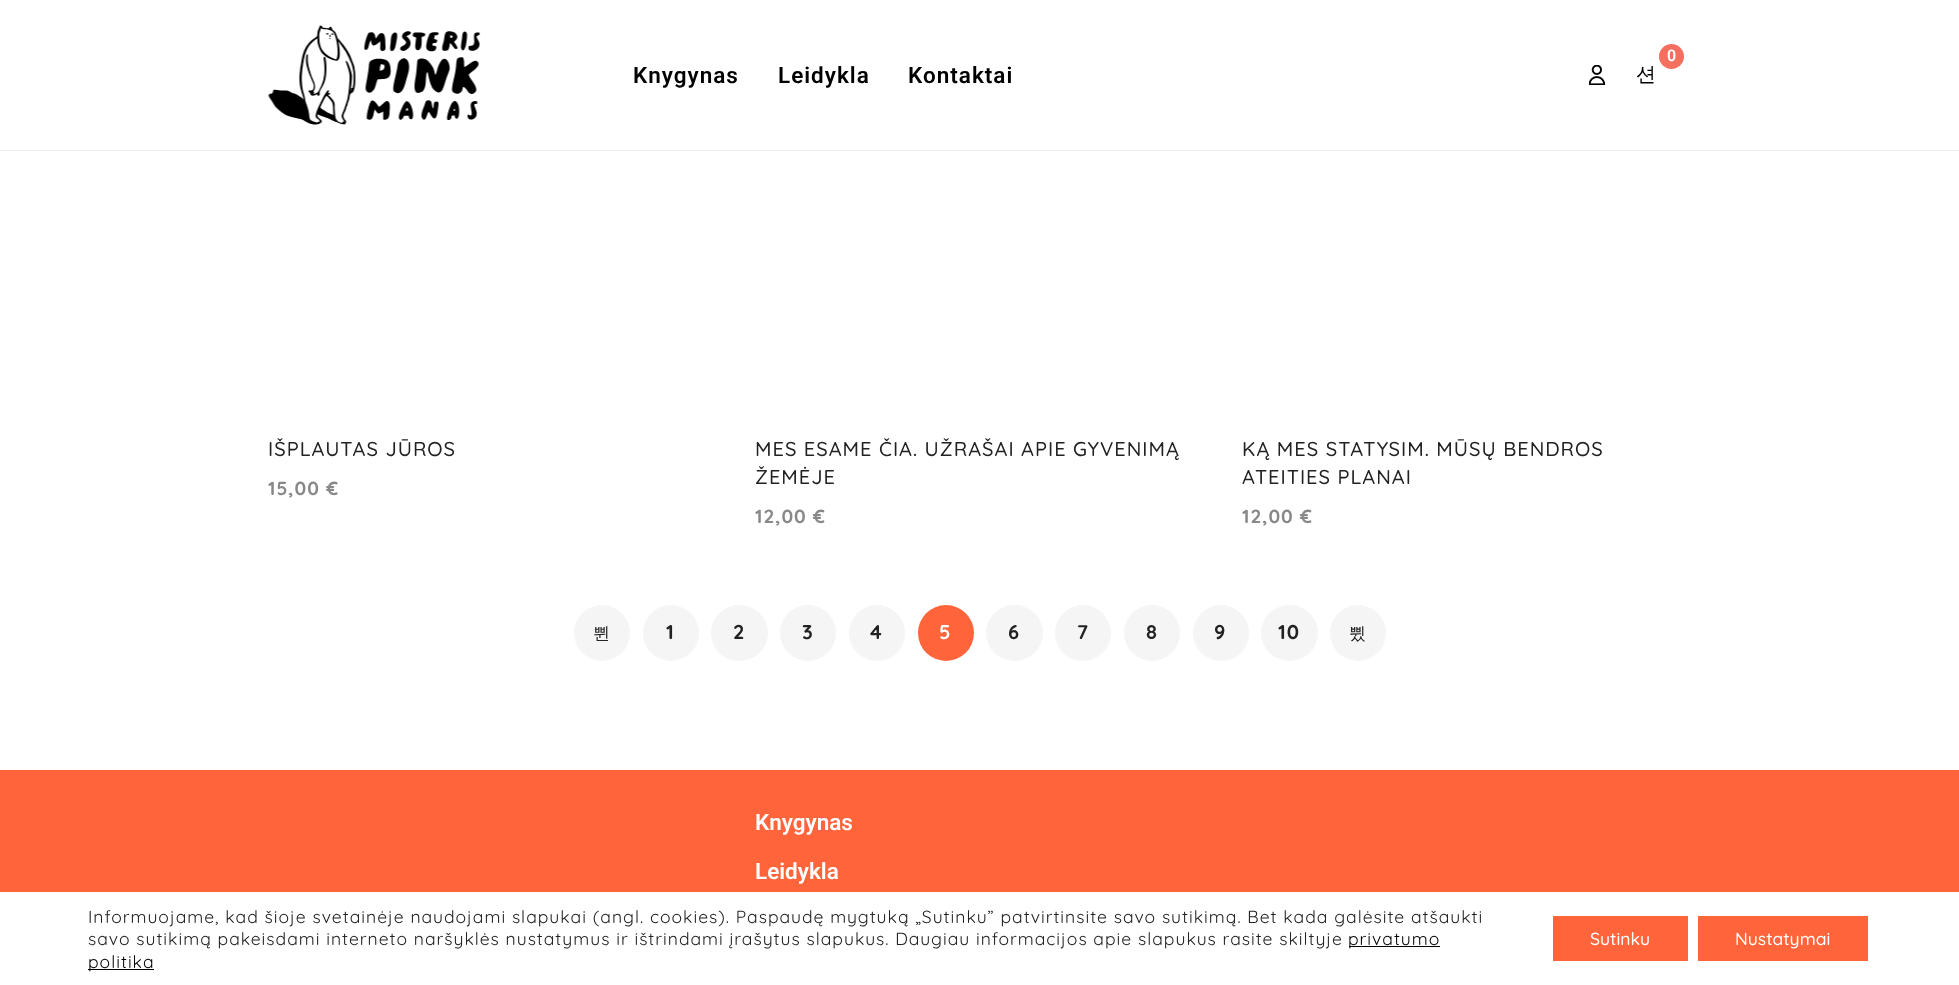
<svg xmlns="http://www.w3.org/2000/svg" width="1959" height="985">
	<rect width="100%" height="100%" fill="#FFFFFF" />
	<rect x="0" y="150" width="1959" height="1" fill="#EBEBEB" />
	<image x="268" y="25" width="213" height="100" href="assets/img1.png" />
	<g font-family="Roboto" font-size="22.5" font-weight="600" letter-spacing="1" fill="#000000">
		<text x="633" y="83">Knygynas</text>
		<text x="778" y="83">Leidykla</text>
		<text x="908" y="83">Kontaktai</text>
	</g>
	<image x="1589" y="65" width="16" height="20" href="assets/img2.png" />
	<circle cx="1671.5" cy="56.5" r="12.5" fill="#F56F5E" />
	<text x="1667" y="61" font-family="Roboto" font-size="16" font-weight="600" letter-spacing="1" fill="#FFFFFF">0</text>
	<text x="1636" y="81" font-family="WenQuanYi Zen Hei" font-size="20" font-weight="500" letter-spacing="1" fill="#000000">션</text>
	<text x="268" y="456" font-family="Quicksand" font-size="20" font-weight="500" letter-spacing="1" fill="#222222">IŠPLAUTAS JŪROS</text>
	<text x="268" y="495" font-family="Quicksand" font-size="19" font-weight="700" letter-spacing="1" fill="#888888">15,00 €</text>
	<g font-family="Quicksand" font-size="20" font-weight="500" letter-spacing="1" fill="#222222">
		<text x="755" y="456">MES ESAME ČIA. UŽRAŠAI APIE GYVENIMĄ</text>
		<text x="755" y="484">ŽEMĖJE</text>
	</g>
	<text x="755" y="523" font-family="Quicksand" font-size="19" font-weight="700" letter-spacing="1" fill="#888888">12,00 €</text>
	<g font-family="Quicksand" font-size="20" font-weight="500" letter-spacing="1" fill="#222222">
		<text x="1242" y="456">KĄ MES STATYSIM. MŪSŲ BENDROS</text>
		<text x="1242" y="484">ATEITIES PLANAI</text>
	</g>
	<text x="1242" y="523" font-family="Quicksand" font-size="19" font-weight="700" letter-spacing="1" fill="#888888">12,00 €</text>
	<circle cx="602" cy="633" r="28" fill="#F5F5F5" />
	<text x="593" y="639" font-family="WenQuanYi Zen Hei" font-size="17" font-weight="500" letter-spacing="1" fill="#222222">쀤</text>
	<circle cx="671" cy="633" r="28" fill="#F5F5F5" />
	<text x="666" y="639" font-family="Quicksand" font-size="20" font-weight="700" letter-spacing="1" fill="#222222">1</text>
	<rect x="711" y="605" width="57" height="56" rx="28" fill="#F5F5F5" />
	<text x="733" y="639" font-family="Quicksand" font-size="20" font-weight="700" letter-spacing="1" fill="#222222">2</text>
	<circle cx="808" cy="633" r="28" fill="#F5F5F5" />
	<text x="802" y="639" font-family="Quicksand" font-size="20" font-weight="700" letter-spacing="1" fill="#222222">3</text>
	<circle cx="877" cy="633" r="28" fill="#F5F5F5" />
	<text x="870" y="639" font-family="Quicksand" font-size="20" font-weight="700" letter-spacing="1" fill="#222222">4</text>
	<circle cx="946" cy="633" r="28" fill="#FF643B" />
	<text x="939" y="639" font-family="Quicksand" font-size="20" font-weight="700" letter-spacing="1" fill="#FFFFFF">5</text>
	<rect x="986" y="605" width="57" height="56" rx="28" fill="#F5F5F5" />
	<text x="1008" y="639" font-family="Quicksand" font-size="20" font-weight="700" letter-spacing="1" fill="#222222">6</text>
	<circle cx="1083" cy="633" r="28" fill="#F5F5F5" />
	<text x="1077" y="639" font-family="Quicksand" font-size="20" font-weight="700" letter-spacing="1" fill="#222222">7</text>
	<circle cx="1152" cy="633" r="28" fill="#F5F5F5" />
	<text x="1146" y="639" font-family="Quicksand" font-size="20" font-weight="700" letter-spacing="1" fill="#222222">8</text>
	<circle cx="1221" cy="633" r="28" fill="#F5F5F5" />
	<text x="1214" y="639" font-family="Quicksand" font-size="20" font-weight="700" letter-spacing="1" fill="#222222">9</text>
	<rect x="1261" y="605" width="57" height="56" rx="28" fill="#F5F5F5" />
	<text x="1278" y="639" font-family="Quicksand" font-size="20" font-weight="700" letter-spacing="1" fill="#222222">10</text>
	<circle cx="1358" cy="633" r="28" fill="#F5F5F5" />
	<text x="1349" y="639" font-family="WenQuanYi Zen Hei" font-size="17" font-weight="500" letter-spacing="1" fill="#222222">쀴</text>
	<rect x="0" y="770" width="1959" height="122" fill="#FF643B" />
	<g font-family="Roboto" font-size="22.5" font-weight="600" fill="#FFFFFF">
		<text x="755" y="830">Knygynas</text>
		<text x="755" y="879">Leidykla</text>
	</g>
	<g font-family="Quicksand" font-size="17.5" letter-spacing="1" fill="#222222">
		<text x="88" y="923">Informuojame, kad šioje svetainėje naudojami slapukai (angl. cookies). Paspaudę mygtuką „Sutinku” patvirtinsite savo sutikimą. Bet kada galėsite atšaukti</text>
		<text x="88" y="945">savo sutikimą pakeisdami interneto naršyklės nustatymus ir ištrindami įrašytus slapukus. Daugiau informacijos apie slapukus rasite skiltyje</text>
	</g>
	<rect x="1349" y="946" width="91" height="1" fill="#000000" />
	<text x="1348" y="945" font-family="Quicksand" font-size="17.5" letter-spacing="1" fill="#000000">privatumo</text>
	<rect x="88" y="969" width="66" height="1" fill="#000000" />
	<text x="88" y="968" font-family="Quicksand" font-size="17.5" letter-spacing="1" fill="#000000">politika</text>
	<rect x="1553" y="916" width="135" height="45" fill="#FF643B" />
	<text x="1590" y="945" font-family="Quicksand" font-size="17.5" font-weight="500" fill="#FFFFFF">Sutinku</text>
	<rect x="1698" y="916" width="170" height="45" fill="#FF643B" />
	<text x="1735" y="945" font-family="Quicksand" font-size="17.5" font-weight="500" fill="#FFFFFF">Nustatymai</text>
</svg>
